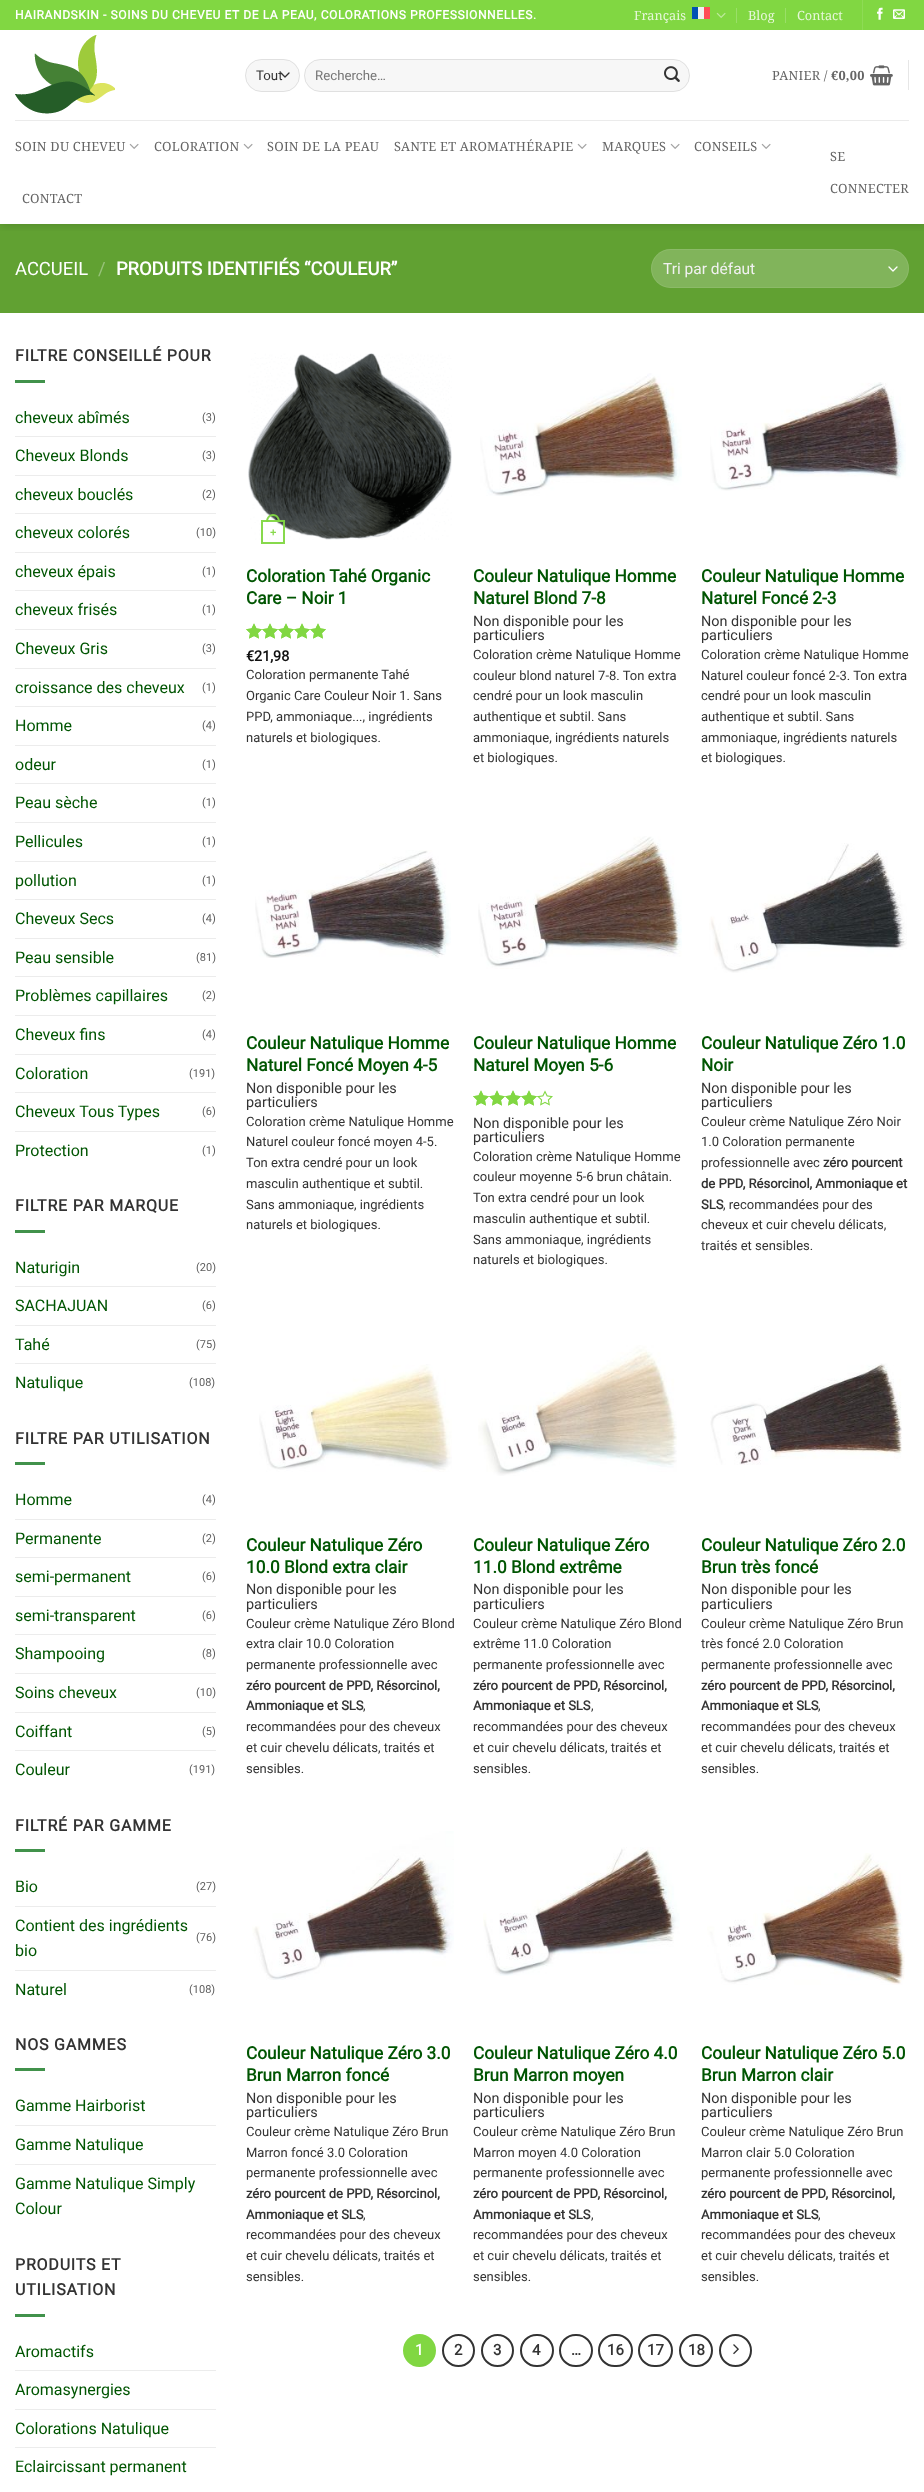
<svg xmlns="http://www.w3.org/2000/svg" width="924" height="2492">
	<defs>
		<clipPath id="clip1"><rect x="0" y="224" width="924" height="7" /></clipPath>
	</defs>
	<rect width="100%" height="100%" fill="#FFFFFF" />
	<rect x="0" y="224" width="924" height="89" fill="#61A132" />
	<g clip-path="url(#clip1)">
		<rect x="1" y="1" width="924" height="224" fill="#000000" fill-opacity="0.15" filter="blur(5px)" />
	</g>
	<rect x="0" y="0" width="924" height="30" fill="#81D742" />
	<text x="15" y="19" font-family="Roboto" font-size="12" font-weight="700" letter-spacing="0.6" fill="#FFFFFF">HAIRANDSKIN - SOINS DU CHEVEU ET DE LA PEAU, COLORATIONS PROFESSIONNELLES.</text>
	<text x="634" y="20" font-family="Noto Serif" font-size="12.75" fill="#E6F7D9">Français</text>
	<rect x="698" y="7" width="6" height="12" fill="#F0F0F0" />
	<rect x="704" y="7" width="6" height="12" fill="#FF4B55" />
	<rect x="692" y="7" width="6" height="12" fill="#0052B4" />
	<image x="716" y="12" width="10" height="6" href="assets/img1.png" />
	<rect x="736" y="8" width="1" height="15" fill="#9ADF68" />
	<text x="748" y="20" font-family="Noto Serif" font-size="12.75" fill="#E6F7D9">Blog</text>
	<rect x="785" y="8" width="1" height="15" fill="#9ADF68" />
	<text x="797" y="20" font-family="Noto Serif" font-size="12.75" fill="#E6F7D9">Contact</text>
	<rect x="862" y="0" width="1" height="30" fill="#8EDB55" />
	<image x="877" y="7" width="6" height="13" href="assets/img2.png" />
	<image x="893" y="9" width="12" height="10" href="assets/img3.png" />
	<image x="15" y="35" width="100" height="79" href="assets/img4.png" />
	<rect x="245" y="59" width="55" height="33" rx="16.5" fill="#F7F7F7" />
	<path d="M281 73L285 77L289 73" fill="none" stroke="#333333" stroke-width="1.3" stroke-linecap="round" stroke-linejoin="round" />
	<rect x="245.5" y="59.5" width="54" height="32" rx="16" fill="none" stroke="#000000" stroke-opacity="0.09" />
	<text x="256" y="80" font-family="Roboto" font-size="13.25" fill="#333333">Tout</text>
	<rect x="304" y="59" width="386" height="33" rx="16.5" fill="#F7F7F7" />
	<rect x="304.5" y="59.5" width="385" height="32" rx="16" fill="none" stroke="#000000" stroke-opacity="0.09" />
	<text x="315" y="80" font-family="Roboto" font-size="13.25" fill="#757575">Recherche…</text>
	<image x="664" y="66" width="16" height="16" href="assets/img5.png" />
	<text x="772" y="80" font-family="Noto Serif" font-size="12.75" letter-spacing="0.25" fill="#656565">PANIER /</text>
	<text x="831" y="80" font-family="Noto Serif" font-size="12.75" font-weight="700" letter-spacing="0.25" fill="#656565">€0,00</text>
	<image x="870" y="65" width="23" height="21" href="assets/img6.png" />
	<rect x="908" y="60" width="1" height="30" fill="#E6E6E6" />
	<rect x="15" y="120" width="894" height="1" fill="#EBEBEB" />
	<text x="15" y="151" font-family="Noto Serif" font-size="12.75" letter-spacing="0.25" fill="#656565">SOIN DU CHEVEU</text>
	<image x="129" y="143" width="10" height="6" href="assets/img7.png" />
	<text x="154" y="151" font-family="Noto Serif" font-size="12.75" letter-spacing="0.25" fill="#656565">COLORATION</text>
	<image x="243" y="143" width="10" height="6" href="assets/img7.png" />
	<g font-family="Noto Serif" font-size="12.75" letter-spacing="0.25" fill="#656565">
		<text x="267" y="151">SOIN DE LA PEAU</text>
		<text x="394" y="151">SANTE ET AROMATHÉRAPIE</text>
	</g>
	<image x="577" y="143" width="10" height="6" href="assets/img7.png" />
	<text x="602" y="151" font-family="Noto Serif" font-size="12.75" letter-spacing="0.25" fill="#656565">MARQUES</text>
	<image x="670" y="143" width="10" height="6" href="assets/img7.png" />
	<text x="694" y="151" font-family="Noto Serif" font-size="12.75" letter-spacing="0.25" fill="#656565">CONSEILS</text>
	<image x="761" y="143" width="10" height="6" href="assets/img7.png" />
	<g font-family="Noto Serif" font-size="12.75" letter-spacing="0.25" fill="#656565">
		<text x="22" y="203">CONTACT</text>
		<text x="830" y="161">SE</text>
		<text x="830" y="193">CONNECTER</text>
	</g>
	<text x="15" y="275" font-family="Roboto" font-size="18.4" fill="#FFFFFF">ACCUEIL</text>
	<text x="98" y="275" font-family="Roboto" font-size="18.4" fill="#98C27A">/</text>
	<text x="116" y="275" font-family="Roboto" font-size="18.4" font-weight="700" fill="#FFFFFF">PRODUITS IDENTIFIÉS “COULEUR”</text>
	<rect x="651" y="249" width="258" height="39" rx="19.5" fill="#81B45B" />
	<path d="M889 267L893 271L897 267" fill="none" stroke="#FFFFFF" stroke-width="1.3" stroke-linecap="round" stroke-linejoin="round" />
	<rect x="651.5" y="249.5" width="257" height="38" rx="19" fill="none" stroke="#FFFFFF" stroke-opacity="0.09" />
	<text x="663" y="274" font-family="Roboto" font-size="15.5" fill="#F1F1F1">Tri par défaut</text>
	<text x="15" y="361" font-family="Roboto" font-size="16" font-weight="700" letter-spacing="0.8" fill="#333333">FILTRE CONSEILLÉ POUR</text>
	<rect x="15" y="380" width="30" height="3" fill="#41924B" />
	<text x="15" y="423" font-family="Roboto" font-size="16" fill="#005502">cheveux abîmés</text>
	<text x="202" y="421" font-family="Roboto" font-size="11" fill="#5C5C5C">(3)</text>
	<rect x="15" y="436" width="201" height="1" fill="#ECECEC" />
	<text x="15" y="461" font-family="Roboto" font-size="16" fill="#005502">Cheveux Blonds</text>
	<text x="202" y="459" font-family="Roboto" font-size="11" fill="#5C5C5C">(3)</text>
	<rect x="15" y="475" width="201" height="1" fill="#ECECEC" />
	<text x="15" y="500" font-family="Roboto" font-size="16" fill="#005502">cheveux bouclés</text>
	<text x="202" y="498" font-family="Roboto" font-size="11" fill="#5C5C5C">(2)</text>
	<rect x="15" y="513" width="201" height="1" fill="#ECECEC" />
	<text x="15" y="538" font-family="Roboto" font-size="16" fill="#005502">cheveux colorés</text>
	<text x="196" y="536" font-family="Roboto" font-size="11" fill="#5C5C5C">(10)</text>
	<rect x="15" y="552" width="201" height="1" fill="#ECECEC" />
	<text x="15" y="577" font-family="Roboto" font-size="16" fill="#005502">cheveux épais</text>
	<text x="202" y="575" font-family="Roboto" font-size="11" fill="#5C5C5C">(1)</text>
	<rect x="15" y="590" width="201" height="1" fill="#ECECEC" />
	<text x="15" y="615" font-family="Roboto" font-size="16" fill="#005502">cheveux frisés</text>
	<text x="202" y="613" font-family="Roboto" font-size="11" fill="#5C5C5C">(1)</text>
	<rect x="15" y="629" width="201" height="1" fill="#ECECEC" />
	<text x="15" y="654" font-family="Roboto" font-size="16" fill="#005502">Cheveux Gris</text>
	<text x="202" y="652" font-family="Roboto" font-size="11" fill="#5C5C5C">(3)</text>
	<rect x="15" y="668" width="201" height="1" fill="#ECECEC" />
	<text x="15" y="693" font-family="Roboto" font-size="16" fill="#005502">croissance des cheveux</text>
	<text x="202" y="691" font-family="Roboto" font-size="11" fill="#5C5C5C">(1)</text>
	<rect x="15" y="706" width="201" height="1" fill="#ECECEC" />
	<text x="15" y="731" font-family="Roboto" font-size="16" fill="#005502">Homme</text>
	<text x="202" y="729" font-family="Roboto" font-size="11" fill="#5C5C5C">(4)</text>
	<rect x="15" y="745" width="201" height="1" fill="#ECECEC" />
	<text x="15" y="770" font-family="Roboto" font-size="16" fill="#005502">odeur</text>
	<text x="202" y="768" font-family="Roboto" font-size="11" fill="#5C5C5C">(1)</text>
	<rect x="15" y="783" width="201" height="1" fill="#ECECEC" />
	<text x="15" y="808" font-family="Roboto" font-size="16" fill="#005502">Peau sèche</text>
	<text x="202" y="806" font-family="Roboto" font-size="11" fill="#5C5C5C">(1)</text>
	<rect x="15" y="822" width="201" height="1" fill="#ECECEC" />
	<text x="15" y="847" font-family="Roboto" font-size="16" fill="#005502">Pellicules</text>
	<text x="202" y="845" font-family="Roboto" font-size="11" fill="#5C5C5C">(1)</text>
	<rect x="15" y="861" width="201" height="1" fill="#ECECEC" />
	<text x="15" y="886" font-family="Roboto" font-size="16" fill="#005502">pollution</text>
	<text x="202" y="884" font-family="Roboto" font-size="11" fill="#5C5C5C">(1)</text>
	<rect x="15" y="899" width="201" height="1" fill="#ECECEC" />
	<text x="15" y="924" font-family="Roboto" font-size="16" fill="#005502">Cheveux Secs</text>
	<text x="202" y="922" font-family="Roboto" font-size="11" fill="#5C5C5C">(4)</text>
	<rect x="15" y="938" width="201" height="1" fill="#ECECEC" />
	<text x="15" y="963" font-family="Roboto" font-size="16" fill="#005502">Peau sensible</text>
	<text x="196" y="961" font-family="Roboto" font-size="11" fill="#5C5C5C">(81)</text>
	<rect x="15" y="976" width="201" height="1" fill="#ECECEC" />
	<text x="15" y="1001" font-family="Roboto" font-size="16" fill="#005502">Problèmes capillaires</text>
	<text x="202" y="999" font-family="Roboto" font-size="11" fill="#5C5C5C">(2)</text>
	<rect x="15" y="1015" width="201" height="1" fill="#ECECEC" />
	<text x="15" y="1040" font-family="Roboto" font-size="16" fill="#005502">Cheveux fins</text>
	<text x="202" y="1038" font-family="Roboto" font-size="11" fill="#5C5C5C">(4)</text>
	<rect x="15" y="1054" width="201" height="1" fill="#ECECEC" />
	<text x="15" y="1079" font-family="Roboto" font-size="16" fill="#005502">Coloration</text>
	<text x="189" y="1077" font-family="Roboto" font-size="11" fill="#5C5C5C">(191)</text>
	<rect x="15" y="1092" width="201" height="1" fill="#ECECEC" />
	<text x="15" y="1117" font-family="Roboto" font-size="16" fill="#005502">Cheveux Tous Types</text>
	<text x="202" y="1115" font-family="Roboto" font-size="11" fill="#5C5C5C">(6)</text>
	<rect x="15" y="1131" width="201" height="1" fill="#ECECEC" />
	<text x="15" y="1156" font-family="Roboto" font-size="16" fill="#005502">Protection</text>
	<text x="202" y="1154" font-family="Roboto" font-size="11" fill="#5C5C5C">(1)</text>
	<text x="15" y="1211" font-family="Roboto" font-size="16" font-weight="700" letter-spacing="0.8" fill="#333333">FILTRE PAR MARQUE</text>
	<rect x="15" y="1230" width="30" height="3" fill="#41924B" />
	<text x="15" y="1273" font-family="Roboto" font-size="16" fill="#005502">Naturigin</text>
	<text x="196" y="1271" font-family="Roboto" font-size="11" fill="#5C5C5C">(20)</text>
	<rect x="15" y="1286" width="201" height="1" fill="#ECECEC" />
	<text x="15" y="1311" font-family="Roboto" font-size="16" fill="#005502">SACHAJUAN</text>
	<text x="202" y="1309" font-family="Roboto" font-size="11" fill="#5C5C5C">(6)</text>
	<rect x="15" y="1325" width="201" height="1" fill="#ECECEC" />
	<text x="15" y="1350" font-family="Roboto" font-size="16" fill="#005502">Tahé</text>
	<text x="196" y="1348" font-family="Roboto" font-size="11" fill="#5C5C5C">(75)</text>
	<rect x="15" y="1363" width="201" height="1" fill="#ECECEC" />
	<text x="15" y="1388" font-family="Roboto" font-size="16" fill="#005502">Natulique</text>
	<text x="189" y="1386" font-family="Roboto" font-size="11" fill="#5C5C5C">(108)</text>
	<text x="15" y="1444" font-family="Roboto" font-size="16" font-weight="700" letter-spacing="0.8" fill="#333333">FILTRE PAR UTILISATION</text>
	<rect x="15" y="1462" width="30" height="3" fill="#41924B" />
	<text x="15" y="1505" font-family="Roboto" font-size="16" fill="#005502">Homme</text>
	<text x="202" y="1503" font-family="Roboto" font-size="11" fill="#5C5C5C">(4)</text>
	<rect x="15" y="1519" width="201" height="1" fill="#ECECEC" />
	<text x="15" y="1544" font-family="Roboto" font-size="16" fill="#005502">Permanente</text>
	<text x="202" y="1542" font-family="Roboto" font-size="11" fill="#5C5C5C">(2)</text>
	<rect x="15" y="1557" width="201" height="1" fill="#ECECEC" />
	<text x="15" y="1582" font-family="Roboto" font-size="16" fill="#005502">semi-permanent</text>
	<text x="202" y="1580" font-family="Roboto" font-size="11" fill="#5C5C5C">(6)</text>
	<rect x="15" y="1596" width="201" height="1" fill="#ECECEC" />
	<text x="15" y="1621" font-family="Roboto" font-size="16" fill="#005502">semi-transparent</text>
	<text x="202" y="1619" font-family="Roboto" font-size="11" fill="#5C5C5C">(6)</text>
	<rect x="15" y="1634" width="201" height="1" fill="#ECECEC" />
	<text x="15" y="1659" font-family="Roboto" font-size="16" fill="#005502">Shampooing</text>
	<text x="202" y="1657" font-family="Roboto" font-size="11" fill="#5C5C5C">(8)</text>
	<rect x="15" y="1673" width="201" height="1" fill="#ECECEC" />
	<text x="15" y="1698" font-family="Roboto" font-size="16" fill="#005502">Soins cheveux</text>
	<text x="196" y="1696" font-family="Roboto" font-size="11" fill="#5C5C5C">(10)</text>
	<rect x="15" y="1712" width="201" height="1" fill="#ECECEC" />
	<text x="15" y="1737" font-family="Roboto" font-size="16" fill="#005502">Coiffant</text>
	<text x="202" y="1735" font-family="Roboto" font-size="11" fill="#5C5C5C">(5)</text>
	<rect x="15" y="1750" width="201" height="1" fill="#ECECEC" />
	<text x="15" y="1775" font-family="Roboto" font-size="16" fill="#005502">Couleur</text>
	<text x="189" y="1773" font-family="Roboto" font-size="11" fill="#5C5C5C">(191)</text>
	<text x="15" y="1831" font-family="Roboto" font-size="16" font-weight="700" letter-spacing="0.8" fill="#333333">FILTRÉ PAR GAMME</text>
	<rect x="15" y="1849" width="30" height="3" fill="#41924B" />
	<text x="15" y="1892" font-family="Roboto" font-size="16" fill="#005502">Bio</text>
	<text x="196" y="1890" font-family="Roboto" font-size="11" fill="#5C5C5C">(27)</text>
	<rect x="15" y="1906" width="201" height="1" fill="#ECECEC" />
	<g font-family="Roboto" font-size="16" fill="#005502">
		<text x="15" y="1931">Contient des ingrédients</text>
		<text x="15" y="1956">bio</text>
	</g>
	<text x="196" y="1941" font-family="Roboto" font-size="11" fill="#5C5C5C">(76)</text>
	<rect x="15" y="1970" width="201" height="1" fill="#ECECEC" />
	<text x="15" y="1995" font-family="Roboto" font-size="16" fill="#005502">Naturel</text>
	<text x="189" y="1993" font-family="Roboto" font-size="11" fill="#5C5C5C">(108)</text>
	<text x="15" y="2050" font-family="Roboto" font-size="16" font-weight="700" letter-spacing="0.8" fill="#333333">NOS GAMMES</text>
	<rect x="15" y="2068" width="30" height="3" fill="#41924B" />
	<text x="15" y="2111" font-family="Roboto" font-size="16" fill="#005502">Gamme Hairborist</text>
	<rect x="15" y="2125" width="201" height="1" fill="#ECECEC" />
	<text x="15" y="2150" font-family="Roboto" font-size="16" fill="#005502">Gamme Natulique</text>
	<rect x="15" y="2164" width="201" height="1" fill="#ECECEC" />
	<g font-family="Roboto" font-size="16" fill="#005502">
		<text x="15" y="2189">Gamme Natulique Simply</text>
		<text x="15" y="2214">Colour</text>
	</g>
	<g font-family="Roboto" font-size="16" font-weight="700" letter-spacing="0.8" fill="#333333">
		<text x="15" y="2270">PRODUITS ET</text>
		<text x="15" y="2295">UTILISATION</text>
	</g>
	<rect x="15" y="2314" width="30" height="3" fill="#41924B" />
	<text x="15" y="2357" font-family="Roboto" font-size="16" fill="#005502">Aromactifs</text>
	<rect x="15" y="2370" width="201" height="1" fill="#ECECEC" />
	<text x="15" y="2395" font-family="Roboto" font-size="16" fill="#005502">Aromasynergies</text>
	<rect x="15" y="2409" width="201" height="1" fill="#ECECEC" />
	<text x="15" y="2434" font-family="Roboto" font-size="16" fill="#005502">Colorations Natulique</text>
	<rect x="15" y="2447" width="201" height="1" fill="#ECECEC" />
	<text x="15" y="2472" font-family="Roboto" font-size="16" fill="#005502">Eclaircissant permanent</text>
	<image x="248" y="353" width="204" height="187" href="assets/img8.png" />
	<rect x="262" y="521" width="22" height="22" fill="none" stroke="#81D742" stroke-opacity="0.95" stroke-width="2" />
	<path d="M273 514C277.5 514 280 518 280 522H266C266 518 268.5 514 273 514ZM273 516C276.5 516 278 519 278 522H268C268 519 269.5 516 273 516Z" fill="#81D742" fill-opacity="0.95" fill-rule="evenodd" />
	<text x="270" y="536" font-family="Liberation Sans" font-size="11" font-weight="700" fill="#87D94B">+</text>
	<g font-family="Roboto" font-size="17.25" font-weight="700" fill="#005502">
		<text x="246" y="582">Coloration Tahé Organic</text>
		<text x="246" y="604">Care – Noir 1</text>
	</g>
	<image x="246" y="623" width="80" height="16" href="assets/img9.png" />
	<image x="246" y="623" width="80" height="16" href="assets/img10.png" />
	<text x="246" y="661" font-family="Roboto" font-size="14.4" font-weight="700" fill="#111111">€21,98</text>
	<g font-family="Roboto" font-size="13" fill="#333333">
		<text x="246" y="679">Coloration permanente Tahé</text>
		<text x="246" y="700">Organic Care Couleur Noir 1. Sans</text>
		<text x="246" y="721">PPD, ammoniaque..., ingrédients</text>
		<text x="246" y="742">naturels et biologiques.</text>
	</g>
	<image x="480" y="373" width="202" height="123" href="assets/img11.png" />
	<g font-family="Roboto" font-size="17.25" font-weight="700" fill="#005502">
		<text x="473" y="582">Couleur Natulique Homme</text>
		<text x="473" y="604">Naturel Blond 7-8</text>
	</g>
	<g font-family="Roboto" font-size="14.4" fill="#333333">
		<text x="473" y="626">Non disponible pour les</text>
		<text x="473" y="640">particuliers</text>
	</g>
	<g font-family="Roboto" font-size="13" fill="#333333">
		<text x="473" y="659">Coloration crème Natulique Homme</text>
		<text x="473" y="680">couleur blond naturel 7-8. Ton extra</text>
		<text x="473" y="700">cendré pour un look masculin</text>
		<text x="473" y="721">authentique et subtil. Sans</text>
		<text x="473" y="742">ammoniaque, ingrédients naturels</text>
		<text x="473" y="762">et biologiques.</text>
	</g>
	<image x="710" y="382" width="196" height="109" href="assets/img12.png" />
	<g font-family="Roboto" font-size="17.25" font-weight="700" fill="#005502">
		<text x="701" y="582">Couleur Natulique Homme</text>
		<text x="701" y="604">Naturel Foncé 2-3</text>
	</g>
	<g font-family="Roboto" font-size="14.4" fill="#333333">
		<text x="701" y="626">Non disponible pour les</text>
		<text x="701" y="640">particuliers</text>
	</g>
	<g font-family="Roboto" font-size="13" fill="#333333">
		<text x="701" y="659">Coloration crème Natulique Homme</text>
		<text x="701" y="680">Naturel couleur foncé 2-3. Ton extra</text>
		<text x="701" y="700">cendré pour un look masculin</text>
		<text x="701" y="721">authentique et subtil. Sans</text>
		<text x="701" y="742">ammoniaque, ingrédients naturels</text>
		<text x="701" y="762">et biologiques.</text>
	</g>
	<image x="255" y="850" width="196" height="108" href="assets/img13.png" />
	<g font-family="Roboto" font-size="17.25" font-weight="700" fill="#005502">
		<text x="246" y="1049">Couleur Natulique Homme</text>
		<text x="246" y="1071">Naturel Foncé Moyen 4-5</text>
	</g>
	<g font-family="Roboto" font-size="14.4" fill="#333333">
		<text x="246" y="1093">Non disponible pour les</text>
		<text x="246" y="1107">particuliers</text>
	</g>
	<g font-family="Roboto" font-size="13" fill="#333333">
		<text x="246" y="1126">Coloration crème Natulique Homme</text>
		<text x="246" y="1146">Naturel couleur foncé moyen 4-5.</text>
		<text x="246" y="1167">Ton extra cendré pour un look</text>
		<text x="246" y="1188">masculin authentique et subtil.</text>
		<text x="246" y="1209">Sans ammoniaque, ingrédients</text>
		<text x="246" y="1229">naturels et biologiques.</text>
	</g>
	<image x="478" y="836" width="204" height="133" href="assets/img14.png" />
	<g font-family="Roboto" font-size="17.25" font-weight="700" fill="#005502">
		<text x="473" y="1049">Couleur Natulique Homme</text>
		<text x="473" y="1071">Naturel Moyen 5-6</text>
	</g>
	<image x="473" y="1090" width="80" height="16" href="assets/img9.png" />
	<image x="473" y="1090" width="65" height="16" href="assets/img15.png" />
	<g font-family="Roboto" font-size="14.4" fill="#333333">
		<text x="473" y="1128">Non disponible pour les</text>
		<text x="473" y="1142">particuliers</text>
	</g>
	<g font-family="Roboto" font-size="13" fill="#333333">
		<text x="473" y="1161">Coloration crème Natulique Homme</text>
		<text x="473" y="1181">couleur moyenne 5-6 brun châtain.</text>
		<text x="473" y="1202">Ton extra cendré pour un look</text>
		<text x="473" y="1223">masculin authentique et subtil.</text>
		<text x="473" y="1244">Sans ammoniaque, ingrédients</text>
		<text x="473" y="1264">naturels et biologiques.</text>
	</g>
	<image x="709" y="843" width="198" height="130" href="assets/img16.png" />
	<g font-family="Roboto" font-size="17.25" font-weight="700" fill="#005502">
		<text x="701" y="1049">Couleur Natulique Zéro 1.0</text>
		<text x="701" y="1071">Noir</text>
	</g>
	<g font-family="Roboto" font-size="14.4" fill="#333333">
		<text x="701" y="1093">Non disponible pour les</text>
		<text x="701" y="1107">particuliers</text>
	</g>
	<g font-family="Roboto" font-size="13" fill="#333333">
		<text x="701" y="1126">Couleur crème Natulique Zéro Noir</text>
		<text x="701" y="1146">1.0 Coloration permanente</text>
		<text x="701" y="1167">professionnelle avec</text>
	</g>
	<g font-family="Roboto" font-size="13" font-weight="700" fill="#333333">
		<text x="823" y="1167">zéro pourcent</text>
		<text x="701" y="1188">de PPD, Résorcinol, Ammoniaque et</text>
		<text x="701" y="1209">SLS</text>
	</g>
	<g font-family="Roboto" font-size="13" fill="#333333">
		<text x="723" y="1209">, recommandées pour des</text>
		<text x="701" y="1229">cheveux et cuir chevelu délicats,</text>
		<text x="701" y="1250">traités et sensibles.</text>
	</g>
	<image x="259" y="1364" width="193" height="108" href="assets/img17.png" />
	<g font-family="Roboto" font-size="17.25" font-weight="700" fill="#005502">
		<text x="246" y="1551">Couleur Natulique Zéro</text>
		<text x="246" y="1573">10.0 Blond extra clair</text>
	</g>
	<g font-family="Roboto" font-size="14.4" fill="#333333">
		<text x="246" y="1594">Non disponible pour les</text>
		<text x="246" y="1609">particuliers</text>
	</g>
	<g font-family="Roboto" font-size="13" fill="#333333">
		<text x="246" y="1628">Couleur crème Natulique Zéro Blond</text>
		<text x="246" y="1648">extra clair 10.0 Coloration</text>
		<text x="246" y="1669">permanente professionnelle avec</text>
	</g>
	<g font-family="Roboto" font-size="13" font-weight="700" fill="#333333">
		<text x="246" y="1690">zéro pourcent de PPD, Résorcinol,</text>
		<text x="246" y="1710">Ammoniaque et SLS</text>
	</g>
	<g font-family="Roboto" font-size="13" fill="#333333">
		<text x="363" y="1710">,</text>
		<text x="246" y="1731">recommandées pour des cheveux</text>
		<text x="246" y="1752">et cuir chevelu délicats, traités et</text>
		<text x="246" y="1773">sensibles.</text>
	</g>
	<image x="478" y="1345" width="199" height="131" href="assets/img18.png" />
	<g font-family="Roboto" font-size="17.25" font-weight="700" fill="#005502">
		<text x="473" y="1551">Couleur Natulique Zéro</text>
		<text x="473" y="1573">11.0 Blond extrême</text>
	</g>
	<g font-family="Roboto" font-size="14.4" fill="#333333">
		<text x="473" y="1594">Non disponible pour les</text>
		<text x="473" y="1609">particuliers</text>
	</g>
	<g font-family="Roboto" font-size="13" fill="#333333">
		<text x="473" y="1628">Couleur crème Natulique Zéro Blond</text>
		<text x="473" y="1648">extrême 11.0 Coloration</text>
		<text x="473" y="1669">permanente professionnelle avec</text>
	</g>
	<g font-family="Roboto" font-size="13" font-weight="700" fill="#333333">
		<text x="473" y="1690">zéro pourcent de PPD, Résorcinol,</text>
		<text x="473" y="1710">Ammoniaque et SLS</text>
	</g>
	<g font-family="Roboto" font-size="13" fill="#333333">
		<text x="591" y="1710">,</text>
		<text x="473" y="1731">recommandées pour des cheveux</text>
		<text x="473" y="1752">et cuir chevelu délicats, traités et</text>
		<text x="473" y="1773">sensibles.</text>
	</g>
	<image x="710" y="1363" width="192" height="102" href="assets/img19.png" />
	<g font-family="Roboto" font-size="17.25" font-weight="700" fill="#005502">
		<text x="701" y="1551">Couleur Natulique Zéro 2.0</text>
		<text x="701" y="1573">Brun très foncé</text>
	</g>
	<g font-family="Roboto" font-size="14.4" fill="#333333">
		<text x="701" y="1594">Non disponible pour les</text>
		<text x="701" y="1609">particuliers</text>
	</g>
	<g font-family="Roboto" font-size="13" fill="#333333">
		<text x="701" y="1628">Couleur crème Natulique Zéro Brun</text>
		<text x="701" y="1648">très foncé 2.0 Coloration</text>
		<text x="701" y="1669">permanente professionnelle avec</text>
	</g>
	<g font-family="Roboto" font-size="13" font-weight="700" fill="#333333">
		<text x="701" y="1690">zéro pourcent de PPD, Résorcinol,</text>
		<text x="701" y="1710">Ammoniaque et SLS</text>
	</g>
	<g font-family="Roboto" font-size="13" fill="#333333">
		<text x="818" y="1710">,</text>
		<text x="701" y="1731">recommandées pour des cheveux</text>
		<text x="701" y="1752">et cuir chevelu délicats, traités et</text>
		<text x="701" y="1773">sensibles.</text>
	</g>
	<image x="252" y="1831" width="202" height="149" href="assets/img20.png" />
	<g font-family="Roboto" font-size="17.25" font-weight="700" fill="#005502">
		<text x="246" y="2059">Couleur Natulique Zéro 3.0</text>
		<text x="246" y="2081">Brun Marron foncé</text>
	</g>
	<g font-family="Roboto" font-size="14.4" fill="#333333">
		<text x="246" y="2103">Non disponible pour les</text>
		<text x="246" y="2117">particuliers</text>
	</g>
	<g font-family="Roboto" font-size="13" fill="#333333">
		<text x="246" y="2136">Couleur crème Natulique Zéro Brun</text>
		<text x="246" y="2157">Marron foncé 3.0 Coloration</text>
		<text x="246" y="2177">permanente professionnelle avec</text>
	</g>
	<g font-family="Roboto" font-size="13" font-weight="700" fill="#333333">
		<text x="246" y="2198">zéro pourcent de PPD, Résorcinol,</text>
		<text x="246" y="2219">Ammoniaque et SLS</text>
	</g>
	<g font-family="Roboto" font-size="13" fill="#333333">
		<text x="363" y="2219">,</text>
		<text x="246" y="2239">recommandées pour des cheveux</text>
		<text x="246" y="2260">et cuir chevelu délicats, traités et</text>
		<text x="246" y="2281">sensibles.</text>
	</g>
	<image x="483" y="1847" width="197" height="129" href="assets/img21.png" />
	<g font-family="Roboto" font-size="17.25" font-weight="700" fill="#005502">
		<text x="473" y="2059">Couleur Natulique Zéro 4.0</text>
		<text x="473" y="2081">Brun Marron moyen</text>
	</g>
	<g font-family="Roboto" font-size="14.4" fill="#333333">
		<text x="473" y="2103">Non disponible pour les</text>
		<text x="473" y="2117">particuliers</text>
	</g>
	<g font-family="Roboto" font-size="13" fill="#333333">
		<text x="473" y="2136">Couleur crème Natulique Zéro Brun</text>
		<text x="473" y="2157">Marron moyen 4.0 Coloration</text>
		<text x="473" y="2177">permanente professionnelle avec</text>
	</g>
	<g font-family="Roboto" font-size="13" font-weight="700" fill="#333333">
		<text x="473" y="2198">zéro pourcent de PPD, Résorcinol,</text>
		<text x="473" y="2219">Ammoniaque et SLS</text>
	</g>
	<g font-family="Roboto" font-size="13" fill="#333333">
		<text x="591" y="2219">,</text>
		<text x="473" y="2239">recommandées pour des cheveux</text>
		<text x="473" y="2260">et cuir chevelu délicats, traités et</text>
		<text x="473" y="2281">sensibles.</text>
	</g>
	<image x="707" y="1853" width="198" height="132" href="assets/img22.png" />
	<g font-family="Roboto" font-size="17.25" font-weight="700" fill="#005502">
		<text x="701" y="2059">Couleur Natulique Zéro 5.0</text>
		<text x="701" y="2081">Brun Marron clair</text>
	</g>
	<g font-family="Roboto" font-size="14.4" fill="#333333">
		<text x="701" y="2103">Non disponible pour les</text>
		<text x="701" y="2117">particuliers</text>
	</g>
	<g font-family="Roboto" font-size="13" fill="#333333">
		<text x="701" y="2136">Couleur crème Natulique Zéro Brun</text>
		<text x="701" y="2157">Marron clair 5.0 Coloration</text>
		<text x="701" y="2177">permanente professionnelle avec</text>
	</g>
	<g font-family="Roboto" font-size="13" font-weight="700" fill="#333333">
		<text x="701" y="2198">zéro pourcent de PPD, Résorcinol,</text>
		<text x="701" y="2219">Ammoniaque et SLS</text>
	</g>
	<g font-family="Roboto" font-size="13" fill="#333333">
		<text x="818" y="2219">,</text>
		<text x="701" y="2239">recommandées pour des cheveux</text>
		<text x="701" y="2260">et cuir chevelu délicats, traités et</text>
		<text x="701" y="2281">sensibles.</text>
	</g>
	<circle cx="419.5" cy="2350.5" r="15.5" fill="#81D742" stroke="#81D742" stroke-width="2" />
	<text x="415" y="2355" font-family="Roboto" font-size="15" font-weight="700" fill="#FFFFFF">1</text>
	<circle cx="458.5" cy="2350.5" r="15.5" fill="none" stroke="#333333" stroke-width="2" />
	<text x="454" y="2355" font-family="Roboto" font-size="15" font-weight="700" fill="#333333">2</text>
	<circle cx="497.5" cy="2350.5" r="15.5" fill="none" stroke="#333333" stroke-width="2" />
	<text x="493" y="2355" font-family="Roboto" font-size="15" font-weight="700" fill="#333333">3</text>
	<rect x="521" y="2335" width="32" height="31" rx="15.5" fill="none" stroke="#333333" stroke-width="2" />
	<text x="532" y="2355" font-family="Roboto" font-size="15" font-weight="700" fill="#333333">4</text>
	<rect x="560" y="2335" width="32" height="31" rx="15.5" fill="none" stroke="#333333" stroke-width="2" />
	<text x="571" y="2355" font-family="Roboto" font-size="15" font-weight="700" fill="#333333">…</text>
	<rect x="599" y="2335" width="33" height="31" rx="15.5" fill="none" stroke="#333333" stroke-width="2" />
	<text x="607" y="2355" font-family="Roboto" font-size="15" font-weight="700" fill="#333333">16</text>
	<rect x="639" y="2335" width="33" height="31" rx="15.5" fill="none" stroke="#333333" stroke-width="2" />
	<text x="647" y="2355" font-family="Roboto" font-size="15" font-weight="700" fill="#333333">17</text>
	<rect x="680" y="2335" width="32" height="31" rx="15.5" fill="none" stroke="#333333" stroke-width="2" />
	<text x="688" y="2355" font-family="Roboto" font-size="15" font-weight="700" fill="#333333">18</text>
	<circle cx="735.5" cy="2350.5" r="15.5" fill="none" stroke="#333333" stroke-width="2" />
	<image x="733" y="2344" width="6" height="11" href="assets/img23.png" />
</svg>
